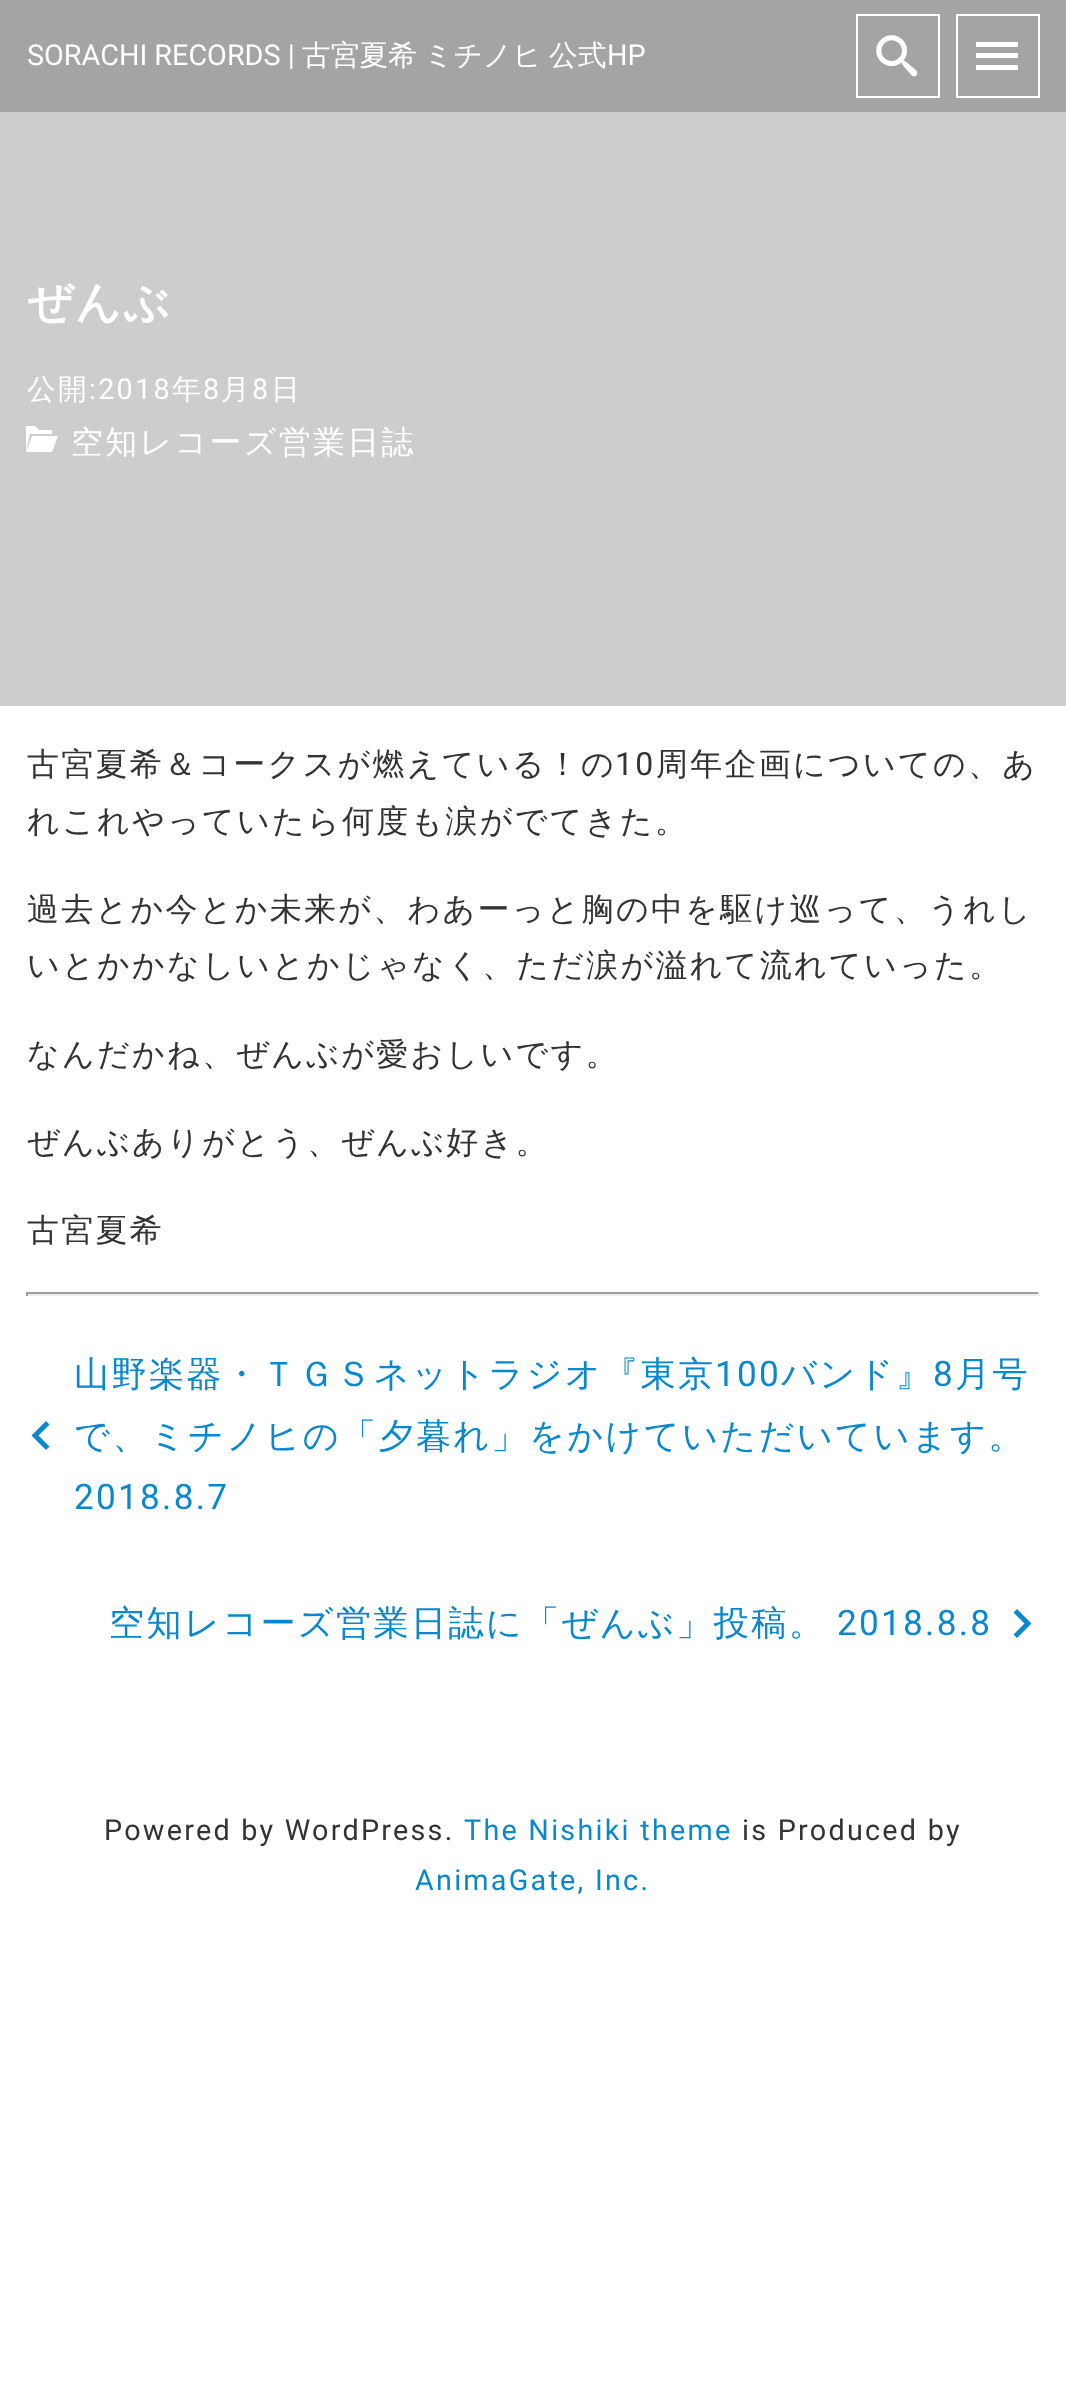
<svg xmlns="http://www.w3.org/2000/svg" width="1066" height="2387">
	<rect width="100%" height="100%" fill="#FFFFFF" />
	<rect x="0" y="0" width="1066" height="112" fill="#A4A4A4" />
	<text x="27" y="65" font-family="Roboto" font-size="28.75" fill="#FFFFFF">SORACHI RECORDS |</text>
	<g font-family="WenQuanYi Zen Hei" font-size="28.75" font-weight="500" fill="#FFFFFF">
		<text x="302" y="65">古宮夏希</text>
		<text x="424" y="65">ミチノヒ</text>
		<text x="549" y="65">公式</text>
	</g>
	<text x="607" y="65" font-family="Roboto" font-size="28.75" fill="#FFFFFF">HP</text>
	<rect x="857" y="15" width="82" height="82" fill="none" stroke="#FFFFFF" stroke-width="2" />
	<image x="876" y="35" width="42" height="42" href="assets/img1.png" />
	<rect x="957" y="15" width="82" height="82" fill="none" stroke="#FFFFFF" stroke-width="2" />
	<path d="M976 70H1018V65H976ZM976 58H1018V53H976ZM976 42V47H1018V42Z" fill="#FFFFFF" />
	<rect x="0" y="112" width="1066" height="594" fill="#CDCDCD" />
	<text x="27" y="318" font-family="WenQuanYi Zen Hei" font-size="45" font-weight="700" letter-spacing="2.25" fill="#FFFFFF">ぜんぶ</text>
	<text x="27" y="399" font-family="WenQuanYi Zen Hei" font-size="28.75" font-weight="500" letter-spacing="2.25" fill="#FFFFFF">公開</text>
	<text x="89" y="399" font-family="Roboto" font-size="28.75" letter-spacing="2.25" fill="#FFFFFF">:2018</text>
	<text x="172" y="399" font-family="WenQuanYi Zen Hei" font-size="28.75" font-weight="500" letter-spacing="2.25" fill="#FFFFFF">年</text>
	<text x="203" y="399" font-family="Roboto" font-size="28.75" letter-spacing="2.25" fill="#FFFFFF">8</text>
	<text x="221" y="399" font-family="WenQuanYi Zen Hei" font-size="28.75" font-weight="500" letter-spacing="2.25" fill="#FFFFFF">月</text>
	<text x="252" y="399" font-family="Roboto" font-size="28.75" letter-spacing="2.25" fill="#FFFFFF">8</text>
	<text x="271" y="399" font-family="WenQuanYi Zen Hei" font-size="28.75" font-weight="500" letter-spacing="2.25" fill="#FFFFFF">日</text>
	<text x="71" y="453" font-family="WenQuanYi Zen Hei" font-size="32" font-weight="500" letter-spacing="2.25" fill="#FFFFFF">空知レコーズ営業日誌</text>
	<path d="M52 452L58 436H32L26 452ZM30 434L26 452V426H35L39 430H52V434Z" fill="#FFFFFF" />
	<text x="27" y="775" font-family="WenQuanYi Zen Hei" font-size="32" font-weight="500" letter-spacing="2.25" fill="#333333">古宮夏希＆コークスが燃えている！の</text>
	<text x="615" y="775" font-family="Roboto" font-size="32" letter-spacing="2.25" fill="#333333">10</text>
	<g font-family="WenQuanYi Zen Hei" font-size="32" font-weight="500" letter-spacing="2.25" fill="#333333">
		<text x="656" y="775">周年企画についての、あ</text>
		<text x="27" y="832">れこれやっていたら何度も涙がでてきた。</text>
		<text x="27" y="920">過去とか今とか未来が、わあーっと胸の中を駆け巡って、うれし</text>
		<text x="27" y="976">いとかかなしいとかじゃなく、ただ涙が溢れて流れていった。</text>
		<text x="27" y="1065">なんだかね、ぜんぶが愛おしいです。</text>
		<text x="27" y="1153">ぜんぶありがとう、ぜんぶ好き。</text>
		<text x="27" y="1241">古宮夏希</text>
	</g>
	<rect x="26" y="1292" width="1014" height="2" fill="#9F9F9F" />
	<rect x="1038" y="1292" width="2" height="4" fill="#EEEEEE" />
	<rect x="26" y="1294" width="1014" height="2" fill="#EEEEEE" />
	<rect x="26" y="1292" width="2" height="4" fill="#9F9F9F" />
	<path d="M49.5 1424.5L46 1421L31.5 1435.5L46 1450L49.5 1446.5L38.5 1435.5Z" fill="#0A88CC" />
	<text x="74" y="1386" font-family="WenQuanYi Zen Hei" font-size="35.2" font-weight="500" letter-spacing="2.25" fill="#0A88CC">山野楽器・ＴＧＳネットラジオ『東京</text>
	<text x="715" y="1386" font-family="Roboto" font-size="35.2" letter-spacing="2.25" fill="#0A88CC">100</text>
	<text x="781" y="1386" font-family="WenQuanYi Zen Hei" font-size="35.2" font-weight="500" letter-spacing="2.25" fill="#0A88CC">バンド』</text>
	<text x="933" y="1386" font-family="Roboto" font-size="35.2" letter-spacing="2.25" fill="#0A88CC">8</text>
	<g font-family="WenQuanYi Zen Hei" font-size="35.2" font-weight="500" letter-spacing="2.25" fill="#0A88CC">
		<text x="955" y="1386">月号</text>
		<text x="74" y="1448">で、ミチノヒの「夕暮れ」をかけていただいています。</text>
	</g>
	<text x="74" y="1509" font-family="Roboto" font-size="35.2" letter-spacing="2.25" fill="#0A88CC">2018.8.7</text>
	<text x="109" y="1635" font-family="WenQuanYi Zen Hei" font-size="35.2" font-weight="500" letter-spacing="2.25" fill="#0A88CC">空知レコーズ営業日誌に「ぜんぶ」投稿。</text>
	<text x="837" y="1635" font-family="Roboto" font-size="35.2" letter-spacing="2.25" fill="#0A88CC">2018.8.8</text>
	<path d="M1017 1609L1013.5 1612.5L1024.5 1623.5L1013.5 1634.5L1017 1638L1031.5 1623.5Z" fill="#0A88CC" />
	<text x="104" y="1840" font-family="Roboto" font-size="28.75" letter-spacing="2.25" fill="#333333">Powered by WordPress.</text>
	<text x="464" y="1840" font-family="Roboto" font-size="28.75" letter-spacing="2.25" fill="#0A88CC">The Nishiki theme</text>
	<text x="742" y="1840" font-family="Roboto" font-size="28.75" letter-spacing="2.25" fill="#333333">is Produced by</text>
	<text x="415" y="1890" font-family="Roboto" font-size="28.75" letter-spacing="2.25" fill="#0A88CC">AnimaGate, Inc.</text>
</svg>
